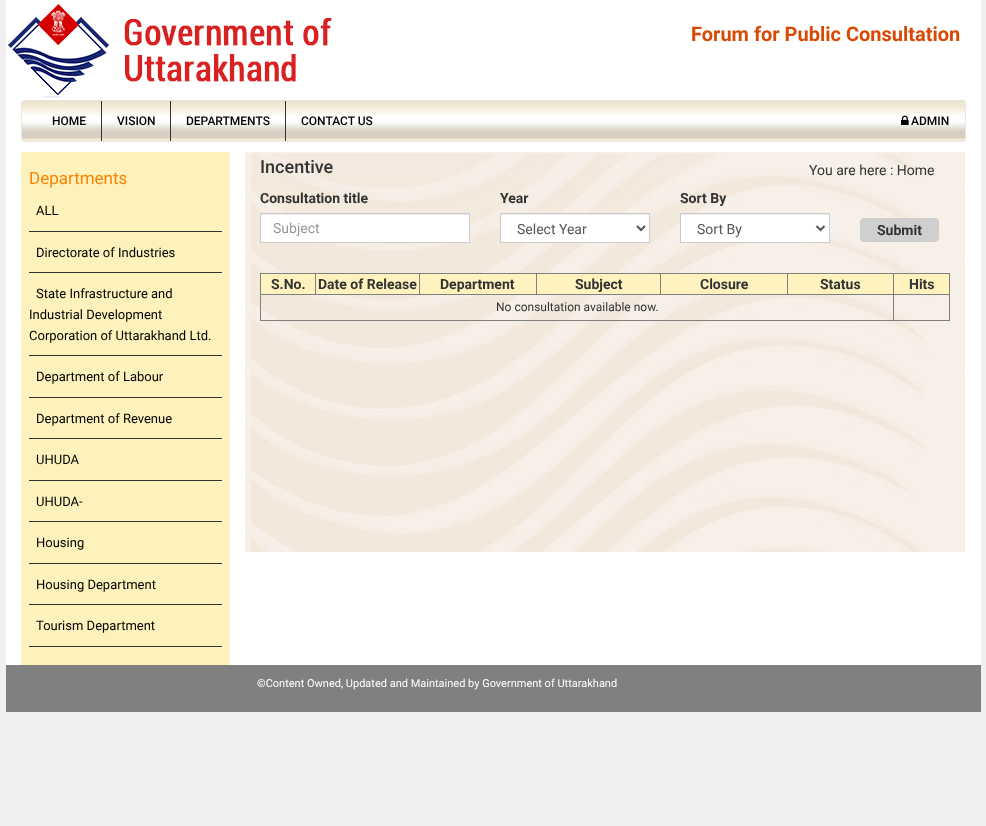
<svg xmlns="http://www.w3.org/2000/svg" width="986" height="826">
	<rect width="100%" height="100%" fill="#F0F0F0" />
	<rect x="6" y="0" width="975" height="665" fill="#FFFFFF" />
	<image x="8" y="4" width="324" height="94" href="assets/img1.png" />
	<text x="691" y="41" font-family="Roboto" font-size="20" font-weight="700" fill="#D94903">Forum for Public Consultation</text>
	<rect x="21" y="100" width="945" height="42" rx="4" fill="#F3EAD6" />
	<image x="21" y="101" width="945" height="38" href="assets/img2.png" />
	<rect x="21.5" y="100.5" width="944" height="41" rx="3.5" fill="none" stroke="#E7E7E7" />
	<rect x="101" y="101" width="1" height="40" fill="#333333" />
	<text x="52" y="125" font-family="Roboto" font-size="12" font-weight="500" fill="#000000">HOME</text>
	<rect x="170" y="101" width="1" height="40" fill="#333333" />
	<text x="117" y="125" font-family="Roboto" font-size="12" font-weight="500" fill="#000000">VISION</text>
	<rect x="285" y="101" width="1" height="40" fill="#333333" />
	<g font-family="Roboto" font-size="12" font-weight="500" fill="#000000">
		<text x="186" y="125">DEPARTMENTS</text>
		<text x="301" y="125">CONTACT US</text>
	</g>
	<image x="901" y="115" width="8" height="10" href="assets/img3.png" />
	<text x="911" y="125" font-family="Roboto" font-size="12" font-weight="500" fill="#000000">ADMIN</text>
	<rect x="21" y="152" width="209" height="513" fill="#FDF2BC" />
	<text x="29" y="184" font-family="Roboto" font-size="17" fill="#FB8200">Departments</text>
	<rect x="29" y="231" width="193" height="1" fill="#333333" />
	<text x="36" y="215" font-family="Roboto" font-size="13" fill="#000000">ALL</text>
	<rect x="29" y="272" width="193" height="1" fill="#333333" />
	<text x="36" y="257" font-family="Roboto" font-size="13" fill="#000000">Directorate of Industries</text>
	<rect x="29" y="355" width="193" height="1" fill="#333333" />
	<g font-family="Roboto" font-size="13" fill="#000000">
		<text x="36" y="298">State Infrastructure and</text>
		<text x="29" y="319">Industrial Development</text>
		<text x="29" y="340">Corporation of Uttarakhand Ltd.</text>
	</g>
	<rect x="29" y="397" width="193" height="1" fill="#333333" />
	<text x="36" y="381" font-family="Roboto" font-size="13" fill="#000000">Department of Labour</text>
	<rect x="29" y="438" width="193" height="1" fill="#333333" />
	<text x="36" y="423" font-family="Roboto" font-size="13" fill="#000000">Department of Revenue</text>
	<rect x="29" y="480" width="193" height="1" fill="#333333" />
	<text x="36" y="464" font-family="Roboto" font-size="13" fill="#000000">UHUDA</text>
	<rect x="29" y="521" width="193" height="1" fill="#333333" />
	<text x="36" y="506" font-family="Roboto" font-size="13" fill="#000000">UHUDA-</text>
	<rect x="29" y="563" width="193" height="1" fill="#333333" />
	<text x="36" y="547" font-family="Roboto" font-size="13" fill="#000000">Housing</text>
	<rect x="29" y="604" width="193" height="1" fill="#333333" />
	<text x="36" y="589" font-family="Roboto" font-size="13" fill="#000000">Housing Department</text>
	<rect x="29" y="646" width="193" height="1" fill="#333333" />
	<text x="36" y="630" font-family="Roboto" font-size="13" fill="#000000">Tourism Department</text>
	<image x="245" y="152" width="720" height="400" href="assets/img4.png" />
	<text x="260" y="173" font-family="Roboto" font-size="18" font-weight="500" fill="#333333">Incentive</text>
	<text x="809" y="175" font-family="Roboto" font-size="14" fill="#333333">You are here : Home</text>
	<text x="260" y="203" font-family="Roboto" font-size="14" font-weight="700" fill="#333333">Consultation title</text>
	<rect x="261" y="215" width="208" height="27" fill="#FFFFFF" />
	<rect x="261" y="214" width="208" height="1" fill="#ECECEC" />
	<rect x="260.5" y="213.5" width="209" height="29" fill="none" stroke="#CCCCCC" />
	<text x="273" y="233" font-family="Roboto" font-size="14" fill="#999999">Subject</text>
	<text x="500" y="203" font-family="Roboto" font-size="14" font-weight="700" fill="#333333">Year</text>
	<rect x="501" y="215" width="148" height="27" fill="#FFFFFF" />
	<rect x="501" y="214" width="148" height="1" fill="#ECECEC" />
	<rect x="500.5" y="213.5" width="149" height="29" fill="none" stroke="#CCCCCC" />
	<path d="M637 226L641 230L645 226" fill="none" stroke="#555555" stroke-width="2" />
	<text x="517" y="234" font-family="Roboto" font-size="14" fill="#555555">Select Year</text>
	<text x="680" y="203" font-family="Roboto" font-size="14" font-weight="700" fill="#333333">Sort By</text>
	<rect x="681" y="215" width="148" height="27" fill="#FFFFFF" />
	<rect x="681" y="214" width="148" height="1" fill="#ECECEC" />
	<rect x="680.5" y="213.5" width="149" height="29" fill="none" stroke="#CCCCCC" />
	<path d="M816.5 226L820.5 230L824.5 226" fill="none" stroke="#555555" stroke-width="2" />
	<text x="697" y="234" font-family="Roboto" font-size="14" fill="#555555">Sort By</text>
	<rect x="860.5" y="218.5" width="78" height="23" rx="3.5" fill="#CFCFCF" stroke="#CCCCCC" />
	<text x="877" y="235" font-family="Roboto" font-size="14" font-weight="700" fill="#333333">Submit</text>
	<rect x="260" y="273" width="690" height="1" fill="#808080" />
	<rect x="949" y="273" width="1" height="48" fill="#808080" />
	<rect x="260" y="320" width="690" height="1" fill="#808080" />
	<rect x="260" y="273" width="1" height="48" fill="#808080" />
	<rect x="261" y="274" width="688" height="20" fill="#FEF2BE" />
	<text x="271" y="289" font-family="Roboto" font-size="14" font-weight="700" fill="#333333">S.No.</text>
	<rect x="260" y="294" width="634" height="1" fill="#808080" />
	<rect x="315" y="273" width="1" height="22" fill="#808080" />
	<text x="318" y="289" font-family="Roboto" font-size="14" font-weight="700" fill="#333333">Date of Release</text>
	<rect x="419" y="273" width="1" height="22" fill="#808080" />
	<text x="440" y="289" font-family="Roboto" font-size="14" font-weight="700" fill="#333333">Department</text>
	<rect x="536" y="273" width="1" height="22" fill="#808080" />
	<text x="575" y="289" font-family="Roboto" font-size="14" font-weight="700" fill="#333333">Subject</text>
	<rect x="660" y="273" width="1" height="22" fill="#808080" />
	<text x="700" y="289" font-family="Roboto" font-size="14" font-weight="700" fill="#333333">Closure</text>
	<rect x="787" y="273" width="1" height="22" fill="#808080" />
	<text x="820" y="289" font-family="Roboto" font-size="14" font-weight="700" fill="#333333">Status</text>
	<rect x="893" y="294" width="1" height="27" fill="#808080" />
	<rect x="893" y="294" width="57" height="1" fill="#808080" />
	<rect x="893" y="273" width="1" height="22" fill="#808080" />
	<text x="909" y="289" font-family="Roboto" font-size="14" font-weight="700" fill="#333333">Hits</text>
	<text x="496" y="311" font-family="Roboto" font-size="12" fill="#333333">No consultation available now.</text>
	<rect x="6" y="665" width="975" height="47" fill="#808080" />
	<text x="257" y="687" font-family="Roboto" font-size="11" fill="#FFFFFF">©Content Owned, Updated and Maintained by Government of Uttarakhand</text>
</svg>
